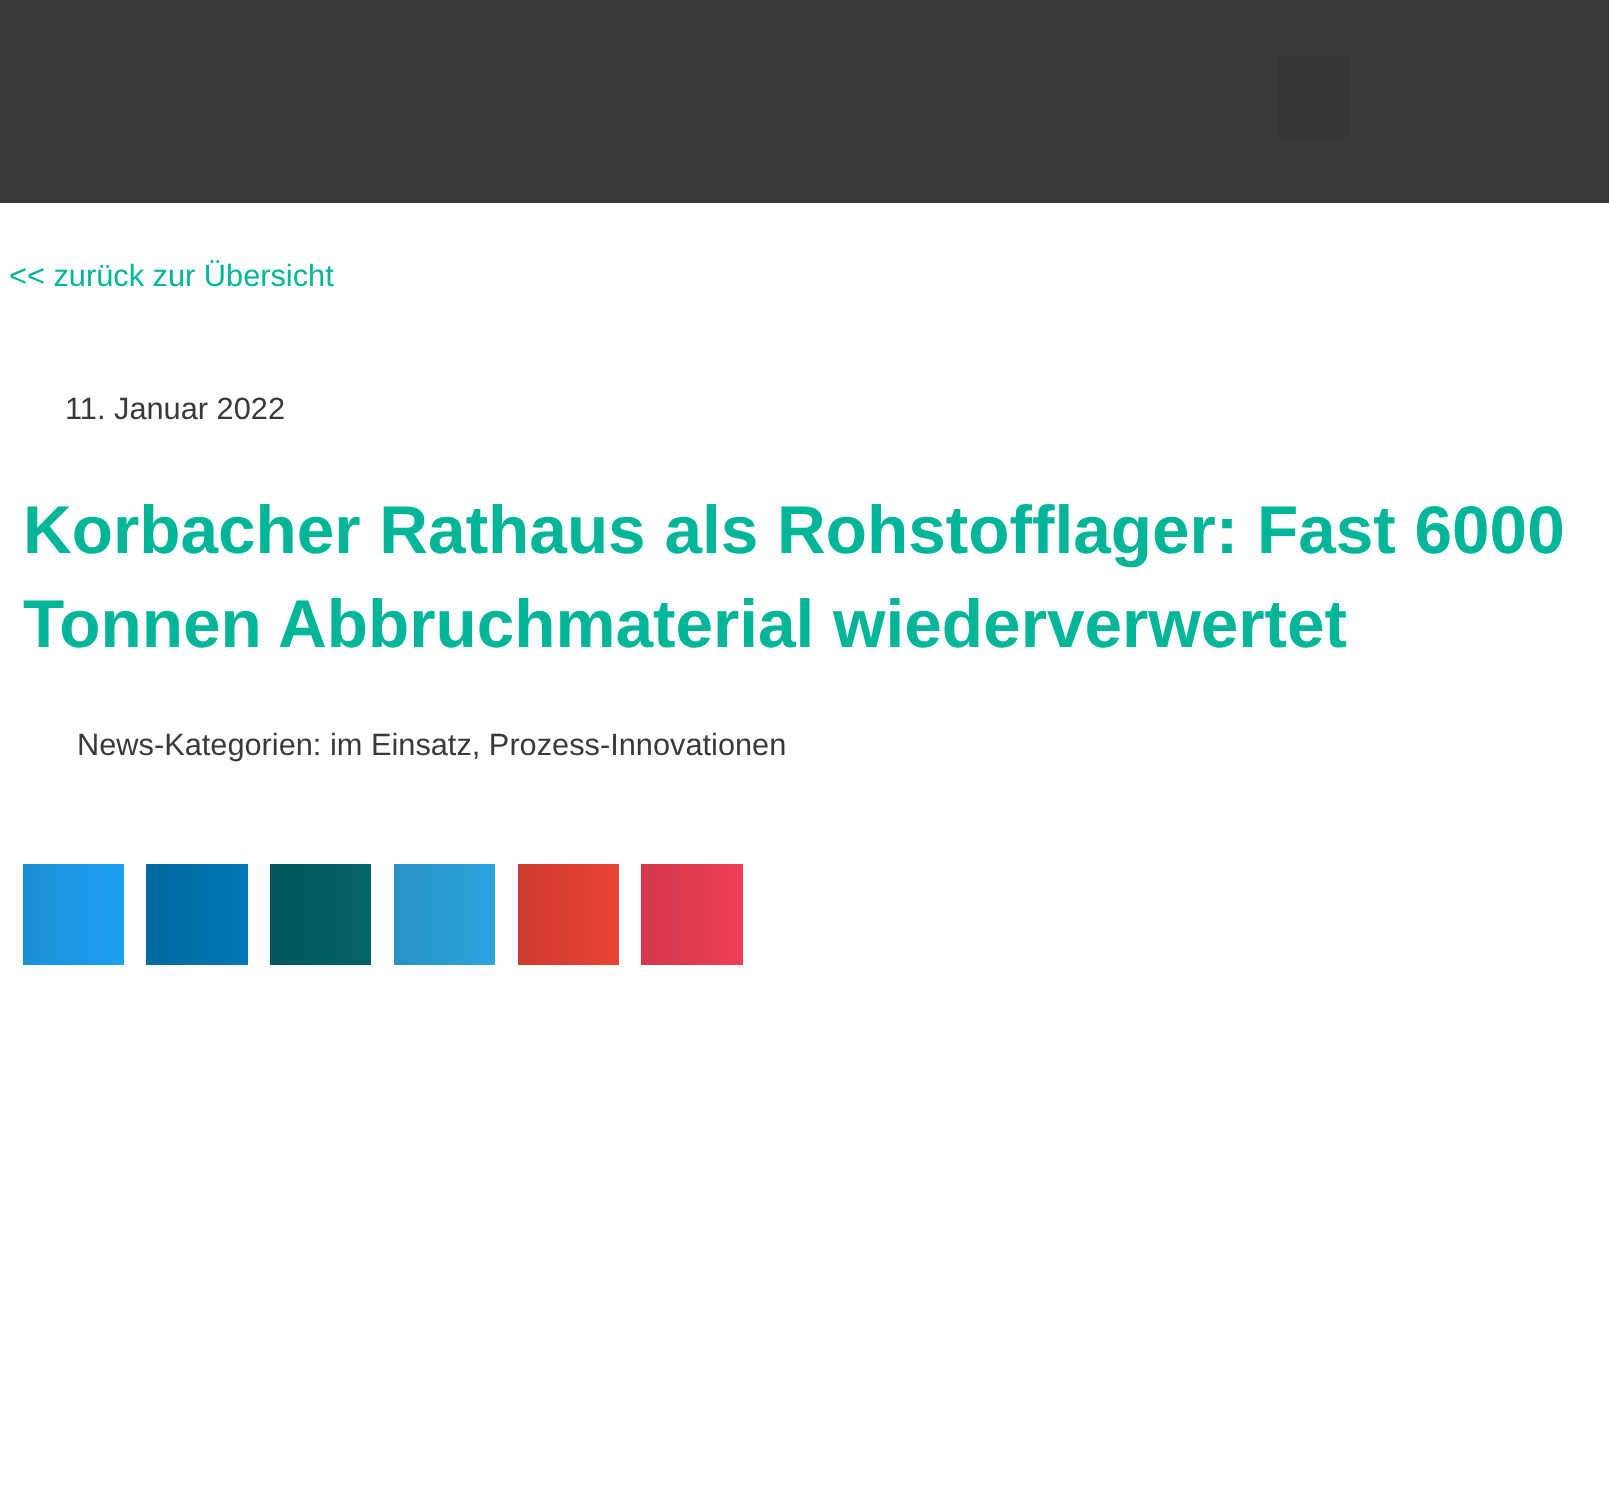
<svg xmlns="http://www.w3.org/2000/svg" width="1609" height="1485">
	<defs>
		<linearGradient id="g1" gradientUnits="userSpaceOnUse" x1="23" y1="915" x2="124" y2="915"><stop offset="0" stop-color="#1A8ED5" /><stop offset="1" stop-color="#1DA1F2" /></linearGradient>
		<linearGradient id="g2" gradientUnits="userSpaceOnUse" x1="146" y1="915" x2="248" y2="915"><stop offset="0" stop-color="#00699F" /><stop offset="1" stop-color="#0077B5" /></linearGradient>
		<linearGradient id="g3" gradientUnits="userSpaceOnUse" x1="270" y1="915" x2="371" y2="915"><stop offset="0" stop-color="#02585A" /><stop offset="1" stop-color="#026466" /></linearGradient>
		<linearGradient id="g4" gradientUnits="userSpaceOnUse" x1="394" y1="915" x2="495" y2="915"><stop offset="0" stop-color="#2791C5" /><stop offset="1" stop-color="#2CA5E0" /></linearGradient>
		<linearGradient id="g5" gradientUnits="userSpaceOnUse" x1="518" y1="915" x2="619" y2="915"><stop offset="0" stop-color="#CE3B2F" /><stop offset="1" stop-color="#EA4335" /></linearGradient>
		<linearGradient id="g6" gradientUnits="userSpaceOnUse" x1="641" y1="915" x2="743" y2="915"><stop offset="0" stop-color="#D2374C" /><stop offset="1" stop-color="#EF3F56" /></linearGradient>
	</defs>
	<rect width="100%" height="100%" fill="#FFFFFF" />
	<rect x="0" y="0" width="1609" height="203" fill="#373A36" />
	<rect x="1278" y="56" width="72" height="86" fill="#343733" />
	<text x="9" y="286" font-family="Liberation Sans" font-size="30.75" fill="#00B598">&lt;&lt; zurück zur Übersicht</text>
	<text x="65" y="419" font-family="Liberation Sans" font-size="30.75" fill="#373A36">11. Januar 2022</text>
	<g font-family="Liberation Sans" font-size="67.5" font-weight="700" fill="#00B598">
		<text x="23" y="553">Korbacher Rathaus als Rohstofflager: Fast 6000</text>
		<text x="23" y="647">Tonnen Abbruchmaterial wiederverwertet</text>
	</g>
	<text x="77" y="755" font-family="Liberation Sans" font-size="30.75" fill="#373A36">News-Kategorien: im Einsatz, Prozess-Innovationen</text>
	<rect x="23" y="864" width="101" height="101" fill="url(#g1)" />
	<rect x="146" y="864" width="102" height="101" fill="url(#g2)" />
	<rect x="270" y="864" width="101" height="101" fill="url(#g3)" />
	<rect x="394" y="864" width="101" height="101" fill="url(#g4)" />
	<rect x="518" y="864" width="101" height="101" fill="url(#g5)" />
	<rect x="641" y="864" width="102" height="101" fill="url(#g6)" />
</svg>
